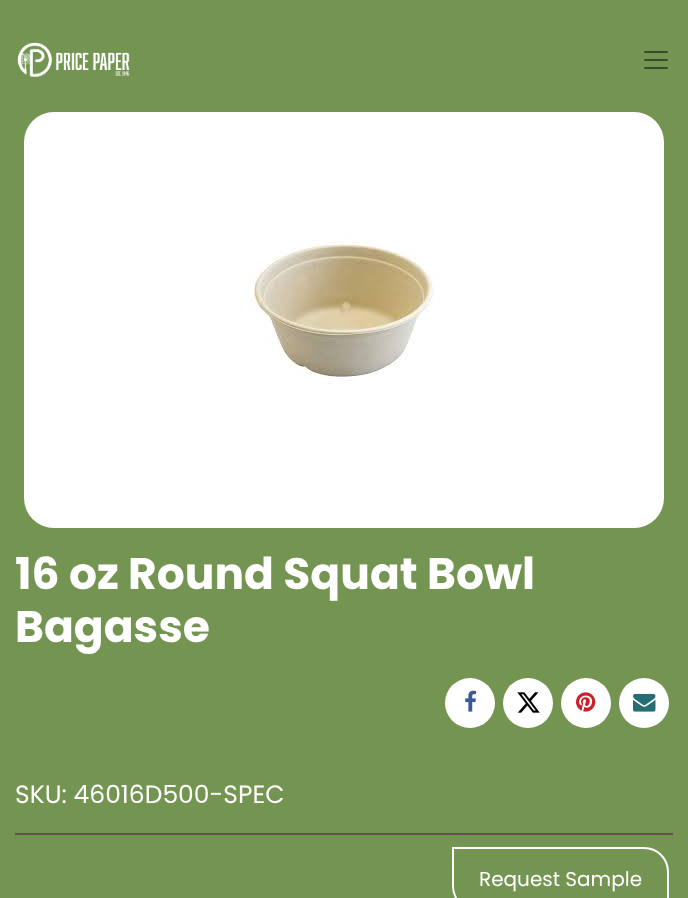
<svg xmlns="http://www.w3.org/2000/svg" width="688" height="898">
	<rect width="100%" height="100%" fill="#749551" />
	<image x="17" y="42" width="113" height="35" href="assets/img1.png" />
	<image x="644" y="51" width="24" height="18" href="assets/img2.png" />
	<rect x="24" y="112" width="640" height="416" rx="30" fill="#FFFFFF" />
	<image x="248" y="236" width="192" height="148" href="assets/img3.png" />
	<g font-family="Poppins" font-size="44" font-weight="700" fill="#FFFFFF">
		<text x="15" y="589">16 oz Round Squat Bowl</text>
		<text x="15" y="642">Bagasse</text>
	</g>
	<circle cx="470" cy="703" r="25" fill="#FFFFFF" />
	<image x="465" y="690" width="12" height="22" href="assets/img4.png" />
	<circle cx="528" cy="703" r="25" fill="#FFFFFF" />
	<image x="517" y="692" width="23" height="21" href="assets/img5.png" />
	<circle cx="586" cy="703" r="25" fill="#FFFFFF" />
	<image x="576" y="692" width="20" height="20" href="assets/img6.png" />
	<circle cx="644" cy="703" r="25" fill="#FFFFFF" />
	<image x="633" y="693" width="23" height="19" href="assets/img7.png" />
	<rect x="15" y="833" width="658" height="2" fill="#635147" />
	<text x="15" y="803" font-family="Poppins" font-size="25" fill="#FFFFFF">SKU: 46016D500-SPEC</text>
	<path d="M453 848H644C657.5 848 668 858.5 668 872V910H477C463.5 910 453 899.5 453 886Z" fill="none" stroke="#FFFFFF" stroke-width="2" />
	<text x="479" y="886" font-family="Poppins" font-size="20" fill="#FFFFFF">Request Sample</text>
</svg>
